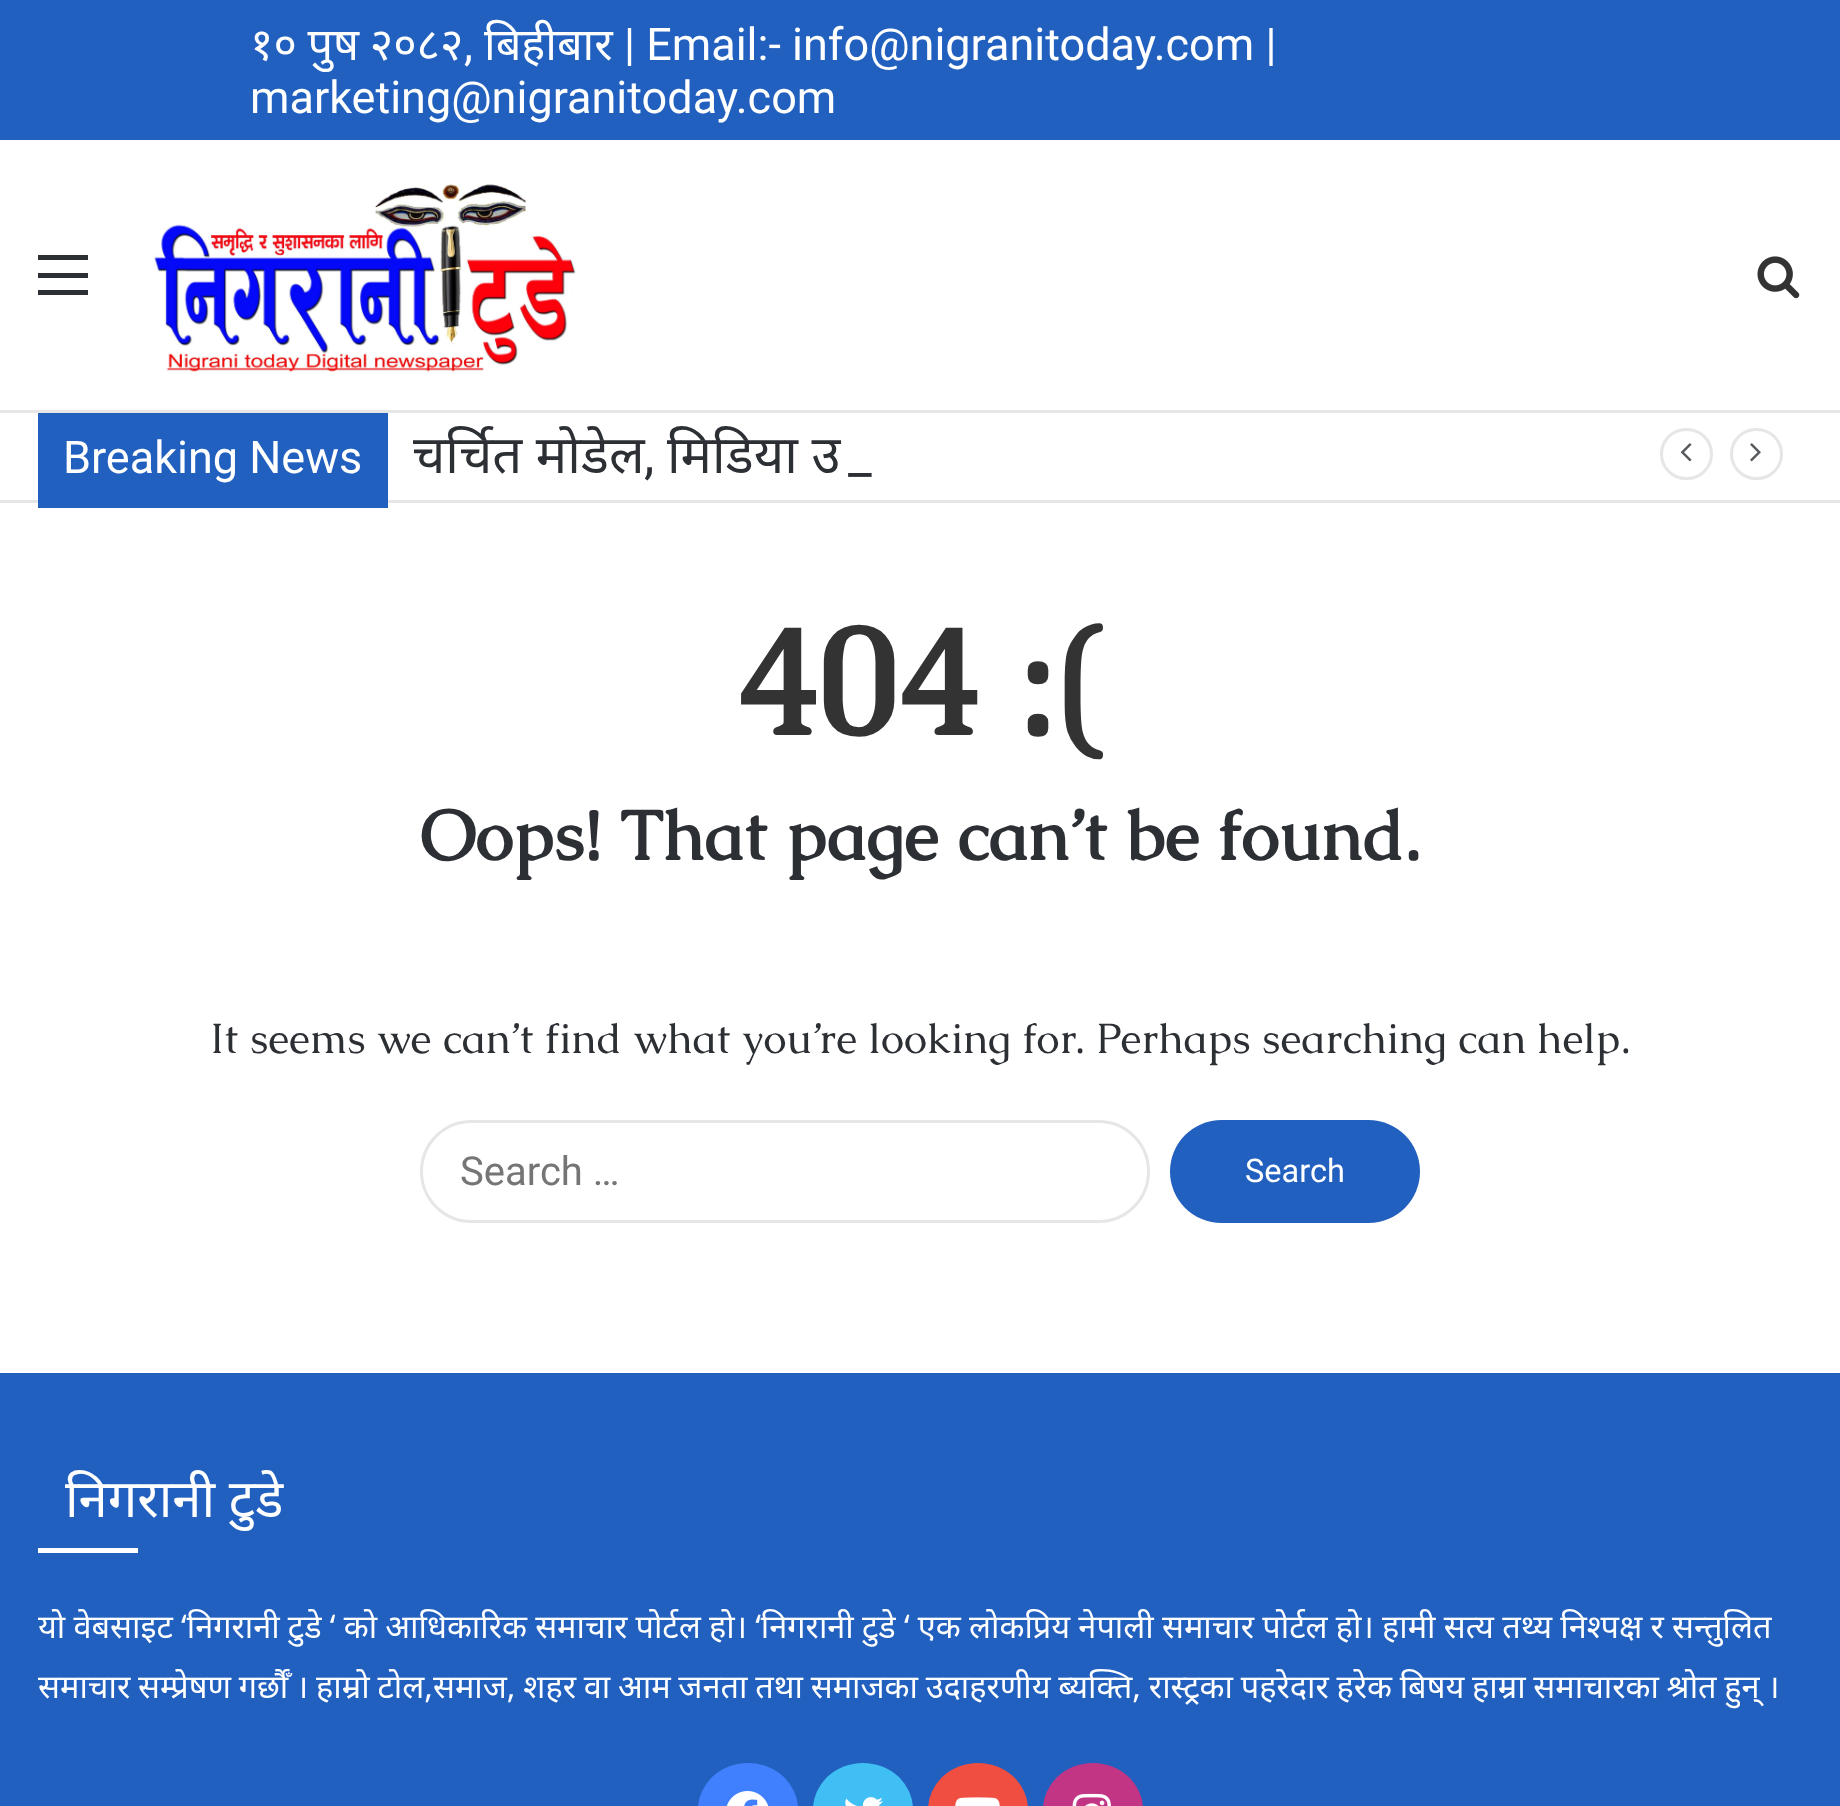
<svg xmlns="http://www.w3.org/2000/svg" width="1840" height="1806">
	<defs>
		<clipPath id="clip1"><rect x="413" y="413" width="1215" height="87" /></clipPath>
		<clipPath id="clip2"><rect x="38" y="1598" width="1765" height="120" /></clipPath>
	</defs>
	<rect width="100%" height="100%" fill="#2260BF" />
	<text x="250" y="60" word-spacing="-1" font-family="Noto Sans" font-size="45" fill="#FFFFFF">१० पुष २०८२</text>
	<text x="464" y="60" font-family="Roboto" font-size="45" fill="#FFFFFF">,</text>
	<text x="484" y="60" font-family="Noto Sans" font-size="45" fill="#FFFFFF">बिहीबार</text>
	<g font-family="Roboto" font-size="45" fill="#FFFFFF">
		<text x="624" y="60">| Email:- info@nigranitoday.com |</text>
		<text x="250" y="113">marketing@nigranitoday.com</text>
	</g>
	<rect x="0" y="140" width="1840" height="1233" fill="#FFFFFF" />
	<rect x="38" y="273" width="50" height="5" fill="#2C2F34" />
	<rect x="38" y="255" width="50" height="5" fill="#2C2F34" />
	<rect x="38" y="290" width="50" height="5" fill="#2C2F34" />
	<image x="153" y="184" width="423" height="188" href="assets/img1.png" />
	<image x="1757" y="256" width="43" height="43" href="assets/img2.png" />
	<rect x="0" y="410" width="1840" height="3" fill="#E6E6E6" />
	<rect x="0" y="500" width="1840" height="3" fill="#E6E6E6" />
	<rect x="38" y="413" width="350" height="95" fill="#2260BF" />
	<text x="63" y="473" font-family="Roboto" font-size="45" fill="#FFFFFF">Breaking News</text>
	<g clip-path="url(#clip1)">
		<text x="412" y="473" font-family="Noto Sans" font-size="52.5" fill="#2C2F34">चर्चित मोडेल</text>
	</g>
	<text x="644" y="473" font-family="Roboto" font-size="52.5" fill="#2C2F34">,</text>
	<text x="667" y="473" font-family="Noto Sans" font-size="52.5" fill="#2C2F34">मिडिया उ</text>
	<text x="848" y="473" font-family="Roboto" font-size="52.5" fill="#2C2F34">_</text>
	<rect x="1661.5" y="429.5" width="50" height="49" rx="24.5" fill="none" stroke="#E6E6E6" stroke-width="3" />
	<image x="1680" y="443" width="12" height="19" href="assets/img3.png" />
	<rect x="1731.5" y="429.5" width="50" height="49" rx="24.5" fill="none" stroke="#E6E6E6" stroke-width="3" />
	<image x="1750" y="443" width="11" height="19" href="assets/img4.png" />
	<text x="735" y="735" font-family="Caudex" font-size="150" font-weight="700" fill="#333333">404 :(</text>
	<text x="420" y="860" font-family="Caudex" font-size="70" font-weight="700" fill="#2C2F34">Oops! That page can’t be found.</text>
	<text x="210" y="1053" font-family="Caudex" font-size="42.5" fill="#2C2F34">It seems we can’t find what you’re looking for. Perhaps searching can help.</text>
	<rect x="421.5" y="1121.5" width="727" height="100" rx="50" fill="none" stroke="#E6E6E6" stroke-width="3" />
	<text x="460" y="1185" font-family="Roboto" font-size="40" fill="#757575">Search …</text>
	<rect x="1170" y="1120" width="250" height="103" rx="51.5" fill="#2260BF" />
	<text x="1245" y="1182" font-family="Roboto" font-size="32.5" fill="#FFFFFF">Search</text>
	<text x="65" y="1517" font-family="Noto Sans" font-size="52.5" fill="#FFFFFF">निगरानी टुडे</text>
	<rect x="38" y="1548" width="100" height="5" fill="#FFFFFF" />
	<g clip-path="url(#clip2)">
		<g font-family="Noto Sans" font-size="32.5" fill="#FFFFFF">
			<text x="38" y="1638" word-spacing="-0.25">यो वेबसाइट ‘निगरानी टुडे ‘ को आधिकारिक समाचार पोर्टल हो। ‘निगरानी टुडे ‘ एक लोकप्रिय नेपाली समाचार पोर्टल हो। हामी सत्य तथ्य निश्पक्ष र सन्तुलित</text>
			<text x="38" y="1698" word-spacing="-0.7">समाचार सम्प्रेषण गर्छौँ । हाम्रो टोल,समाज, शहर वा आम जनता तथा समाजका उदाहरणीय ब्यक्ति, रास्ट्रका पहरेदार हरेक बिषय हाम्रा समाचारका श्रोत हुन् ।</text>
		</g>
	</g>
	<rect x="698" y="1763" width="100" height="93" rx="50" fill="#4080FF" />
	<image x="726" y="1791" width="43" height="15" href="assets/img5.png" />
	<rect x="813" y="1763" width="100" height="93" rx="50" fill="#40BFF5" />
	<image x="845" y="1797" width="38" height="9" href="assets/img6.png" />
	<rect x="928" y="1763" width="100" height="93" rx="50" fill="#EF4E41" />
	<image x="955" y="1797" width="45" height="9" href="assets/img7.png" />
	<rect x="1043" y="1763" width="100" height="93" rx="50" fill="#C13584" />
	<image x="1072" y="1793" width="39" height="13" href="assets/img8.png" />
</svg>
